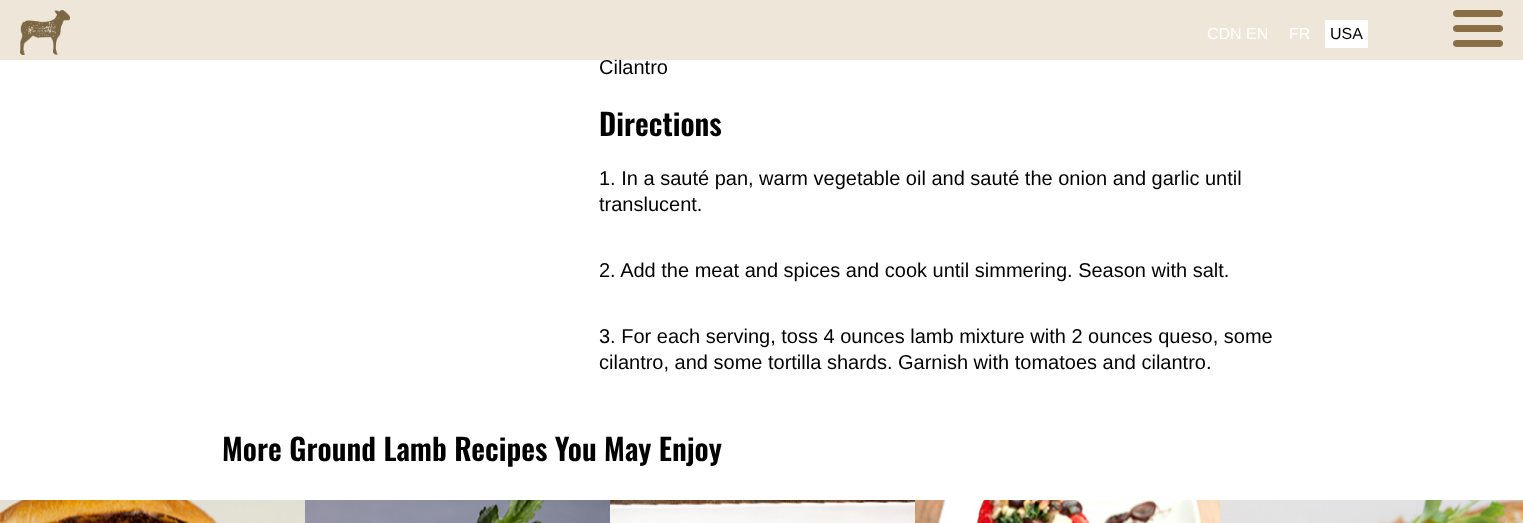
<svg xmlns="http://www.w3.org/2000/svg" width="1523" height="523">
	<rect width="100%" height="100%" fill="#FFFFFF" />
	<text x="599" y="74" font-family="Liberation Sans" font-size="20" fill="#000000">Cilantro</text>
	<rect x="0" y="0" width="1523" height="60" fill="#EADECE" fill-opacity="0.75" />
	<image x="20" y="10" width="50" height="45" href="assets/img1.png" />
	<g font-family="Liberation Sans" font-size="16" fill="#FFFFFF">
		<text x="1207" y="39">CDN EN</text>
		<text x="1289" y="39">FR</text>
	</g>
	<rect x="1325" y="20" width="43" height="28" fill="#FFFFFF" />
	<text x="1330" y="39" font-family="Liberation Sans" font-size="16" fill="#000000">USA</text>
	<path d="M1456.5 10H1478V17H1456.5C1454.5 17 1453 15.5 1453 13.5C1453 11.5 1454.5 10 1456.5 10Z" fill="#896E46" />
	<path d="M1478 10H1499.5C1501.5 10 1503 11.5 1503 13.5C1503 15.5 1501.5 17 1499.5 17H1478Z" fill="#896E46" />
	<path d="M1456.5 25H1478V32H1456.5C1454.5 32 1453 30.5 1453 28.5C1453 26.5 1454.5 25 1456.5 25Z" fill="#896E46" />
	<path d="M1478 25H1499.5C1501.5 25 1503 26.5 1503 28.5C1503 30.5 1501.5 32 1499.5 32H1478Z" fill="#896E46" />
	<path d="M1456.5 40H1478V47H1456.5C1454.5 47 1453 45.5 1453 43.5C1453 41.5 1454.5 40 1456.5 40Z" fill="#896E46" />
	<path d="M1478 40H1499.5C1501.5 40 1503 41.5 1503 43.5C1503 45.5 1501.5 47 1499.5 47H1478Z" fill="#896E46" />
	<text x="599" y="136" font-family="Oswald" font-size="30" font-weight="600" fill="#000000">Directions</text>
	<g font-family="Liberation Sans" font-size="20" fill="#000000">
		<text x="599" y="185">1. In a sauté pan, warm vegetable oil and sauté the onion and garlic until</text>
		<text x="599" y="211">translucent.</text>
		<text x="599" y="277">2. Add the meat and spices and cook until simmering. Season with salt.</text>
		<text x="599" y="343">3. For each serving, toss 4 ounces lamb mixture with 2 ounces queso, some</text>
		<text x="599" y="369">cilantro, and some tortilla shards. Garnish with tomatoes and cilantro.</text>
	</g>
	<text x="222" y="461" font-family="Oswald" font-size="30" font-weight="600" fill="#000000">More Ground Lamb Recipes You May Enjoy</text>
	<image x="0" y="500" width="305" height="23" href="assets/img2.png" />
	<image x="305" y="500" width="305" height="23" href="assets/img3.png" />
	<image x="610" y="500" width="305" height="23" href="assets/img4.png" />
	<image x="915" y="500" width="305" height="23" href="assets/img5.png" />
	<image x="1220" y="500" width="303" height="23" href="assets/img6.png" />
</svg>
